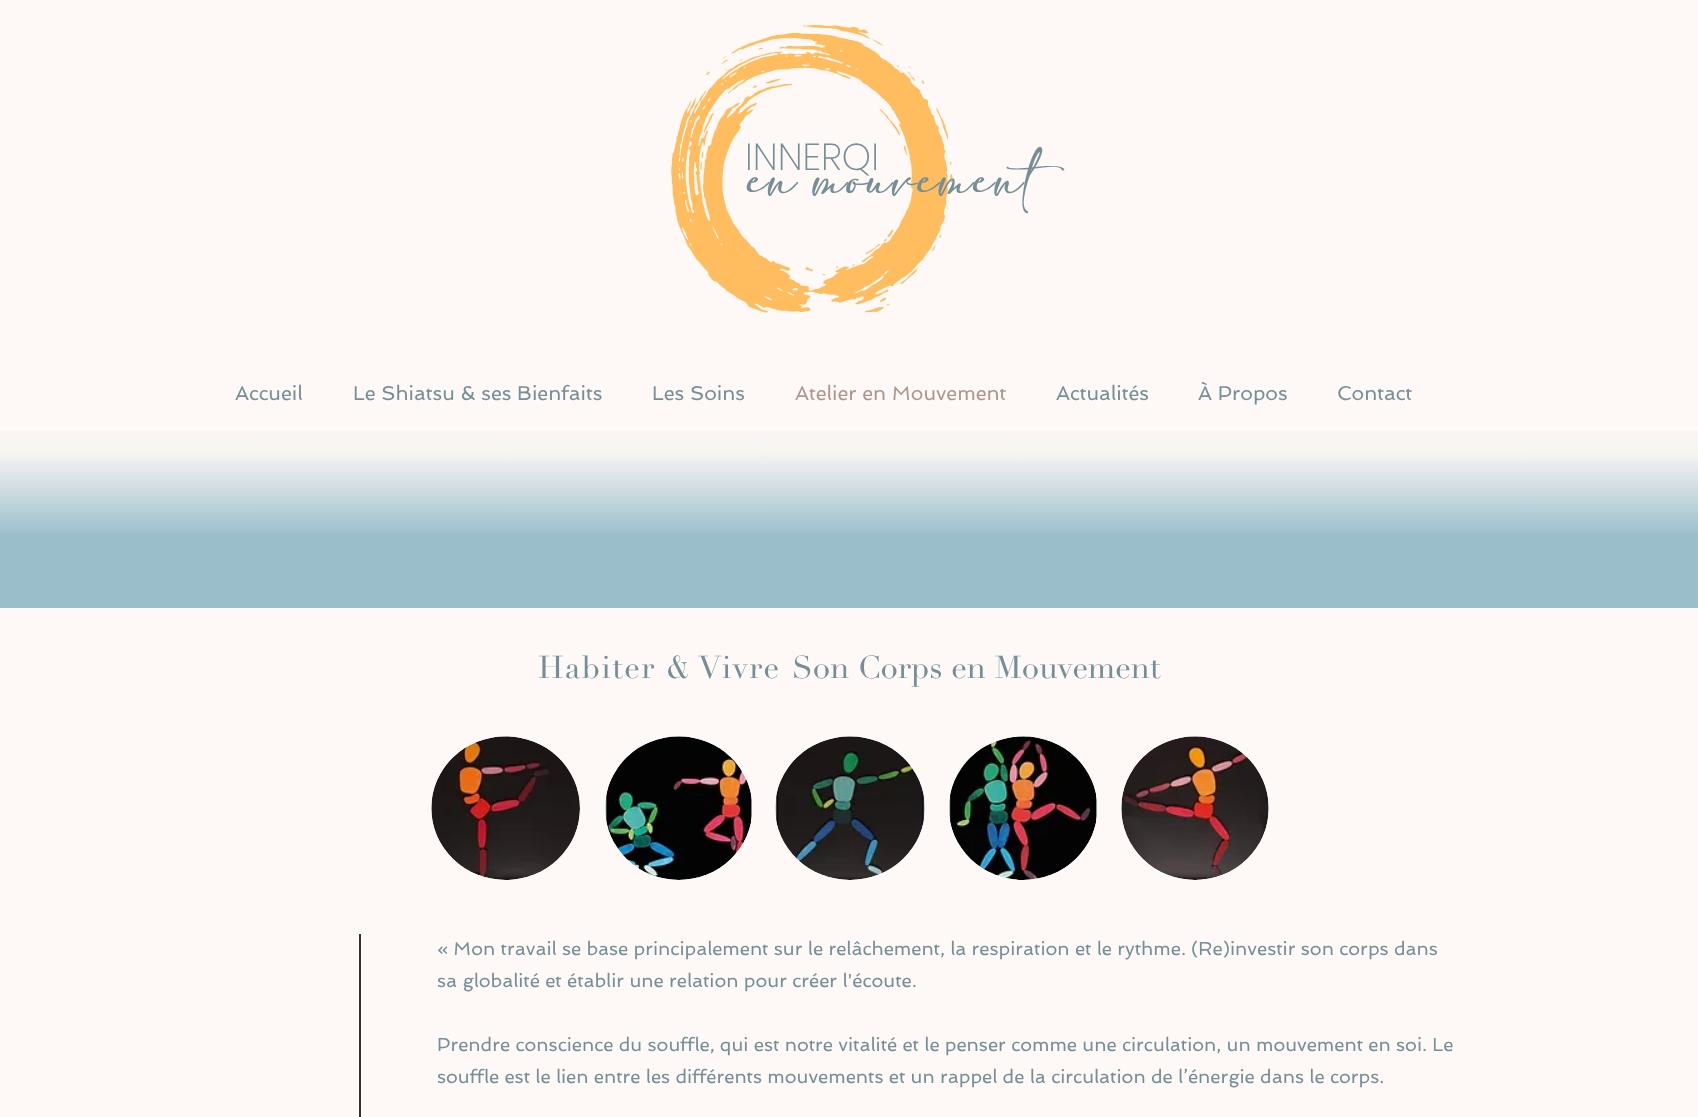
<svg xmlns="http://www.w3.org/2000/svg" width="1698" height="1117">
	<defs>
		<linearGradient id="g1" gradientUnits="userSpaceOnUse" x1="849" y1="425" x2="849" y2="601"><stop offset="0.15" stop-color="#FEF9F6" stop-opacity="0.94" /><stop offset="0.63" stop-color="#FEF9F6" stop-opacity="0" /></linearGradient>
	</defs>
	<rect width="100%" height="100%" fill="#FEF9F6" />
	<image x="671" y="25" width="282" height="288" href="assets/img1.png" />
	<text x="745" y="170" font-family="Poppins" font-size="37.5" font-weight="200" fill="#748F98">INNERQI</text>
	<text x="748" y="194" font-family="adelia" font-size="37.5" letter-spacing="1.9" fill="#748F98">en mouvement</text>
	<g font-family="Spinnaker" font-size="20" fill="#748F98">
		<text x="235" y="400">Accueil</text>
		<text x="353" y="400">Le Shiatsu &amp; ses Bienfaits</text>
		<text x="652" y="400">Les Soins</text>
	</g>
	<text x="795" y="400" font-family="Spinnaker" font-size="20" fill="#AF968C">Atelier en Mouvement</text>
	<g font-family="Spinnaker" font-size="20" fill="#748F98">
		<text x="1056" y="400">Actualités</text>
		<text x="1198" y="400">À Propos</text>
		<text x="1337" y="400">Contact</text>
	</g>
	<rect x="0" y="431" width="1698" height="177" fill="#9BBECB" />
	<rect x="0" y="431" width="1698" height="103" fill="url(#g1)" />
	<text x="538" y="678" font-family="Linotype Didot" font-size="31.25" letter-spacing="1.5" fill="#748F98">Habiter &amp; Vivre</text>
	<text x="792" y="678" font-family="Linotype Didot" font-size="31.25" fill="#748F98">Son Corps en Mouvement</text>
	<ellipse cx="505.5" cy="808" rx="74.5" ry="72" fill="#FFFFFF" />
	<image x="431" y="736" width="149" height="144" href="assets/img2.png" />
	<ellipse cx="679" cy="808" rx="74" ry="72" fill="#FFFFFF" />
	<image x="605" y="736" width="148" height="144" href="assets/img3.png" />
	<ellipse cx="850" cy="808" rx="75" ry="72" fill="#FFFFFF" />
	<image x="775" y="736" width="150" height="144" href="assets/img4.png" />
	<ellipse cx="1023" cy="808" rx="74.5" ry="72" fill="#FFFFFF" />
	<image x="949" y="736" width="149" height="144" href="assets/img5.png" />
	<ellipse cx="1195" cy="808" rx="74" ry="72" fill="#FFFFFF" />
	<image x="1121" y="736" width="148" height="144" href="assets/img6.png" />
	<rect x="359" y="934" width="2" height="183" fill="#333231" />
	<g font-family="Spinnaker" font-size="18.75" fill="#748F98">
		<text x="437" y="955">« Mon travail se base principalement sur le relâchement, la respiration et le rythme. (Re)investir son corps dans</text>
		<text x="437" y="987">sa globalité et établir une relation pour créer l'écoute.</text>
		<text x="437" y="1051">Prendre conscience du souffle, qui est notre vitalité et le penser comme une circulation, un mouvement en soi. Le</text>
		<text x="437" y="1083">souffle est le lien entre les différents mouvements et un rappel de la circulation de l’énergie dans le corps.</text>
	</g>
</svg>
